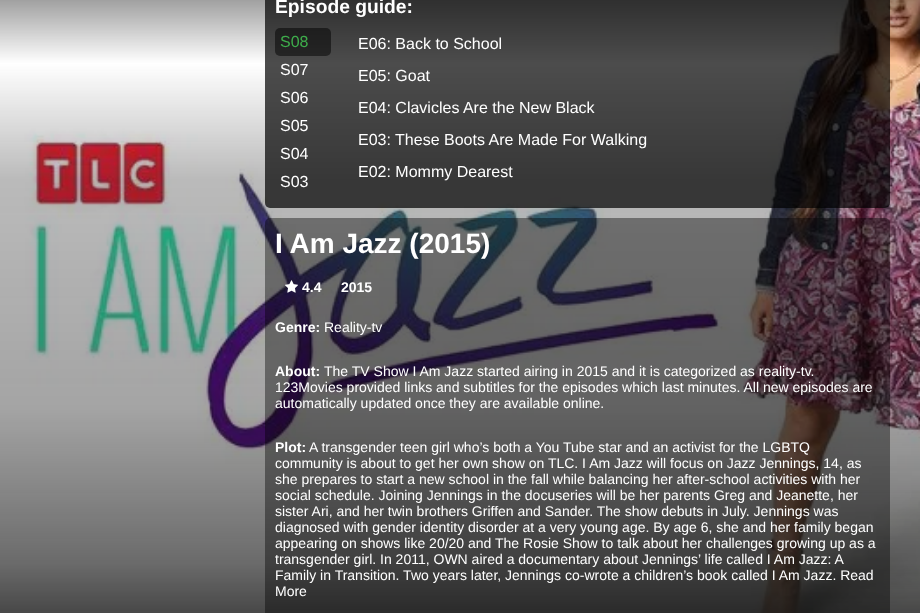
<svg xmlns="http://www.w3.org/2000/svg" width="920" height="613">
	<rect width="100%" height="100%" fill="#FFFFFF" />
	<image x="0" y="0" width="920" height="613" href="assets/img1.png" />
	<rect x="265" y="-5" width="625" height="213" rx="5" fill="#000000" fill-opacity="0.7" />
	<text x="275" y="13" font-family="Liberation Sans" font-size="19.25" font-weight="700" fill="#FFFFFF">Episode guide:</text>
	<rect x="275" y="28" width="56" height="28" rx="5" fill="#000000" fill-opacity="0.5" />
	<text x="280" y="47" font-family="Liberation Sans" font-size="16" fill="#3EAD4B">S08</text>
	<g font-family="Liberation Sans" font-size="16" fill="#FFFFFF">
		<text x="280" y="75">S07</text>
		<text x="280" y="103">S06</text>
		<text x="280" y="131">S05</text>
		<text x="280" y="159">S04</text>
		<text x="280" y="187">S03</text>
		<text x="358" y="49">E06: Back to School</text>
		<text x="358" y="81">E05: Goat</text>
		<text x="358" y="113">E04: Clavicles Are the New Black</text>
		<text x="358" y="145">E03: These Boots Are Made For Walking</text>
		<text x="358" y="177">E02: Mommy Dearest</text>
	</g>
	<rect x="265" y="218" width="625" height="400" rx="5" fill="#000000" fill-opacity="0.4" />
	<text x="275" y="253" font-family="Liberation Sans" font-size="28" font-weight="700" fill="#FFFFFF">I Am Jazz (2015)</text>
	<image x="285" y="280" width="13" height="13" href="assets/img2.png" />
	<g font-family="Liberation Sans" font-size="14" font-weight="700" fill="#FFFFFF">
		<text x="302" y="292">4.4</text>
		<text x="341" y="292">2015</text>
		<text x="275" y="332">Genre:</text>
	</g>
	<text x="324" y="332" font-family="Liberation Sans" font-size="14" fill="#FFFFFF">Reality-tv</text>
	<text x="275" y="376" font-family="Liberation Sans" font-size="14" font-weight="700" fill="#FFFFFF">About:</text>
	<g font-family="Liberation Sans" font-size="14" fill="#FFFFFF">
		<text x="324" y="376">The TV Show I Am Jazz started airing in 2015 and it is categorized as reality-tv.</text>
		<text x="275" y="392">123Movies provided links and subtitles for the episodes which last minutes. All new episodes are</text>
		<text x="275" y="408">automatically updated once they are available online.</text>
	</g>
	<text x="275" y="452" font-family="Liberation Sans" font-size="14" font-weight="700" fill="#FFFFFF">Plot:</text>
	<g font-family="Liberation Sans" font-size="14" fill="#FFFFFF">
		<text x="309" y="452">A transgender teen girl who’s both a You Tube star and an activist for the LGBTQ</text>
		<text x="275" y="468">community is about to get her own show on TLC. I Am Jazz will focus on Jazz Jennings, 14, as</text>
		<text x="275" y="484">she prepares to start a new school in the fall while balancing her after-school activities with her</text>
		<text x="275" y="500">social schedule. Joining Jennings in the docuseries will be her parents Greg and Jeanette, her</text>
		<text x="275" y="516">sister Ari, and her twin brothers Griffen and Sander. The show debuts in July. Jennings was</text>
		<text x="275" y="532">diagnosed with gender identity disorder at a very young age. By age 6, she and her family began</text>
		<text x="275" y="548">appearing on shows like 20/20 and The Rosie Show to talk about her challenges growing up as a</text>
		<text x="275" y="564">transgender girl. In 2011, OWN aired a documentary about Jennings’ life called I Am Jazz: A</text>
		<text x="275" y="580">Family in Transition. Two years later, Jennings co-wrote a children’s book called I Am Jazz. Read</text>
		<text x="275" y="596">More</text>
	</g>
</svg>
